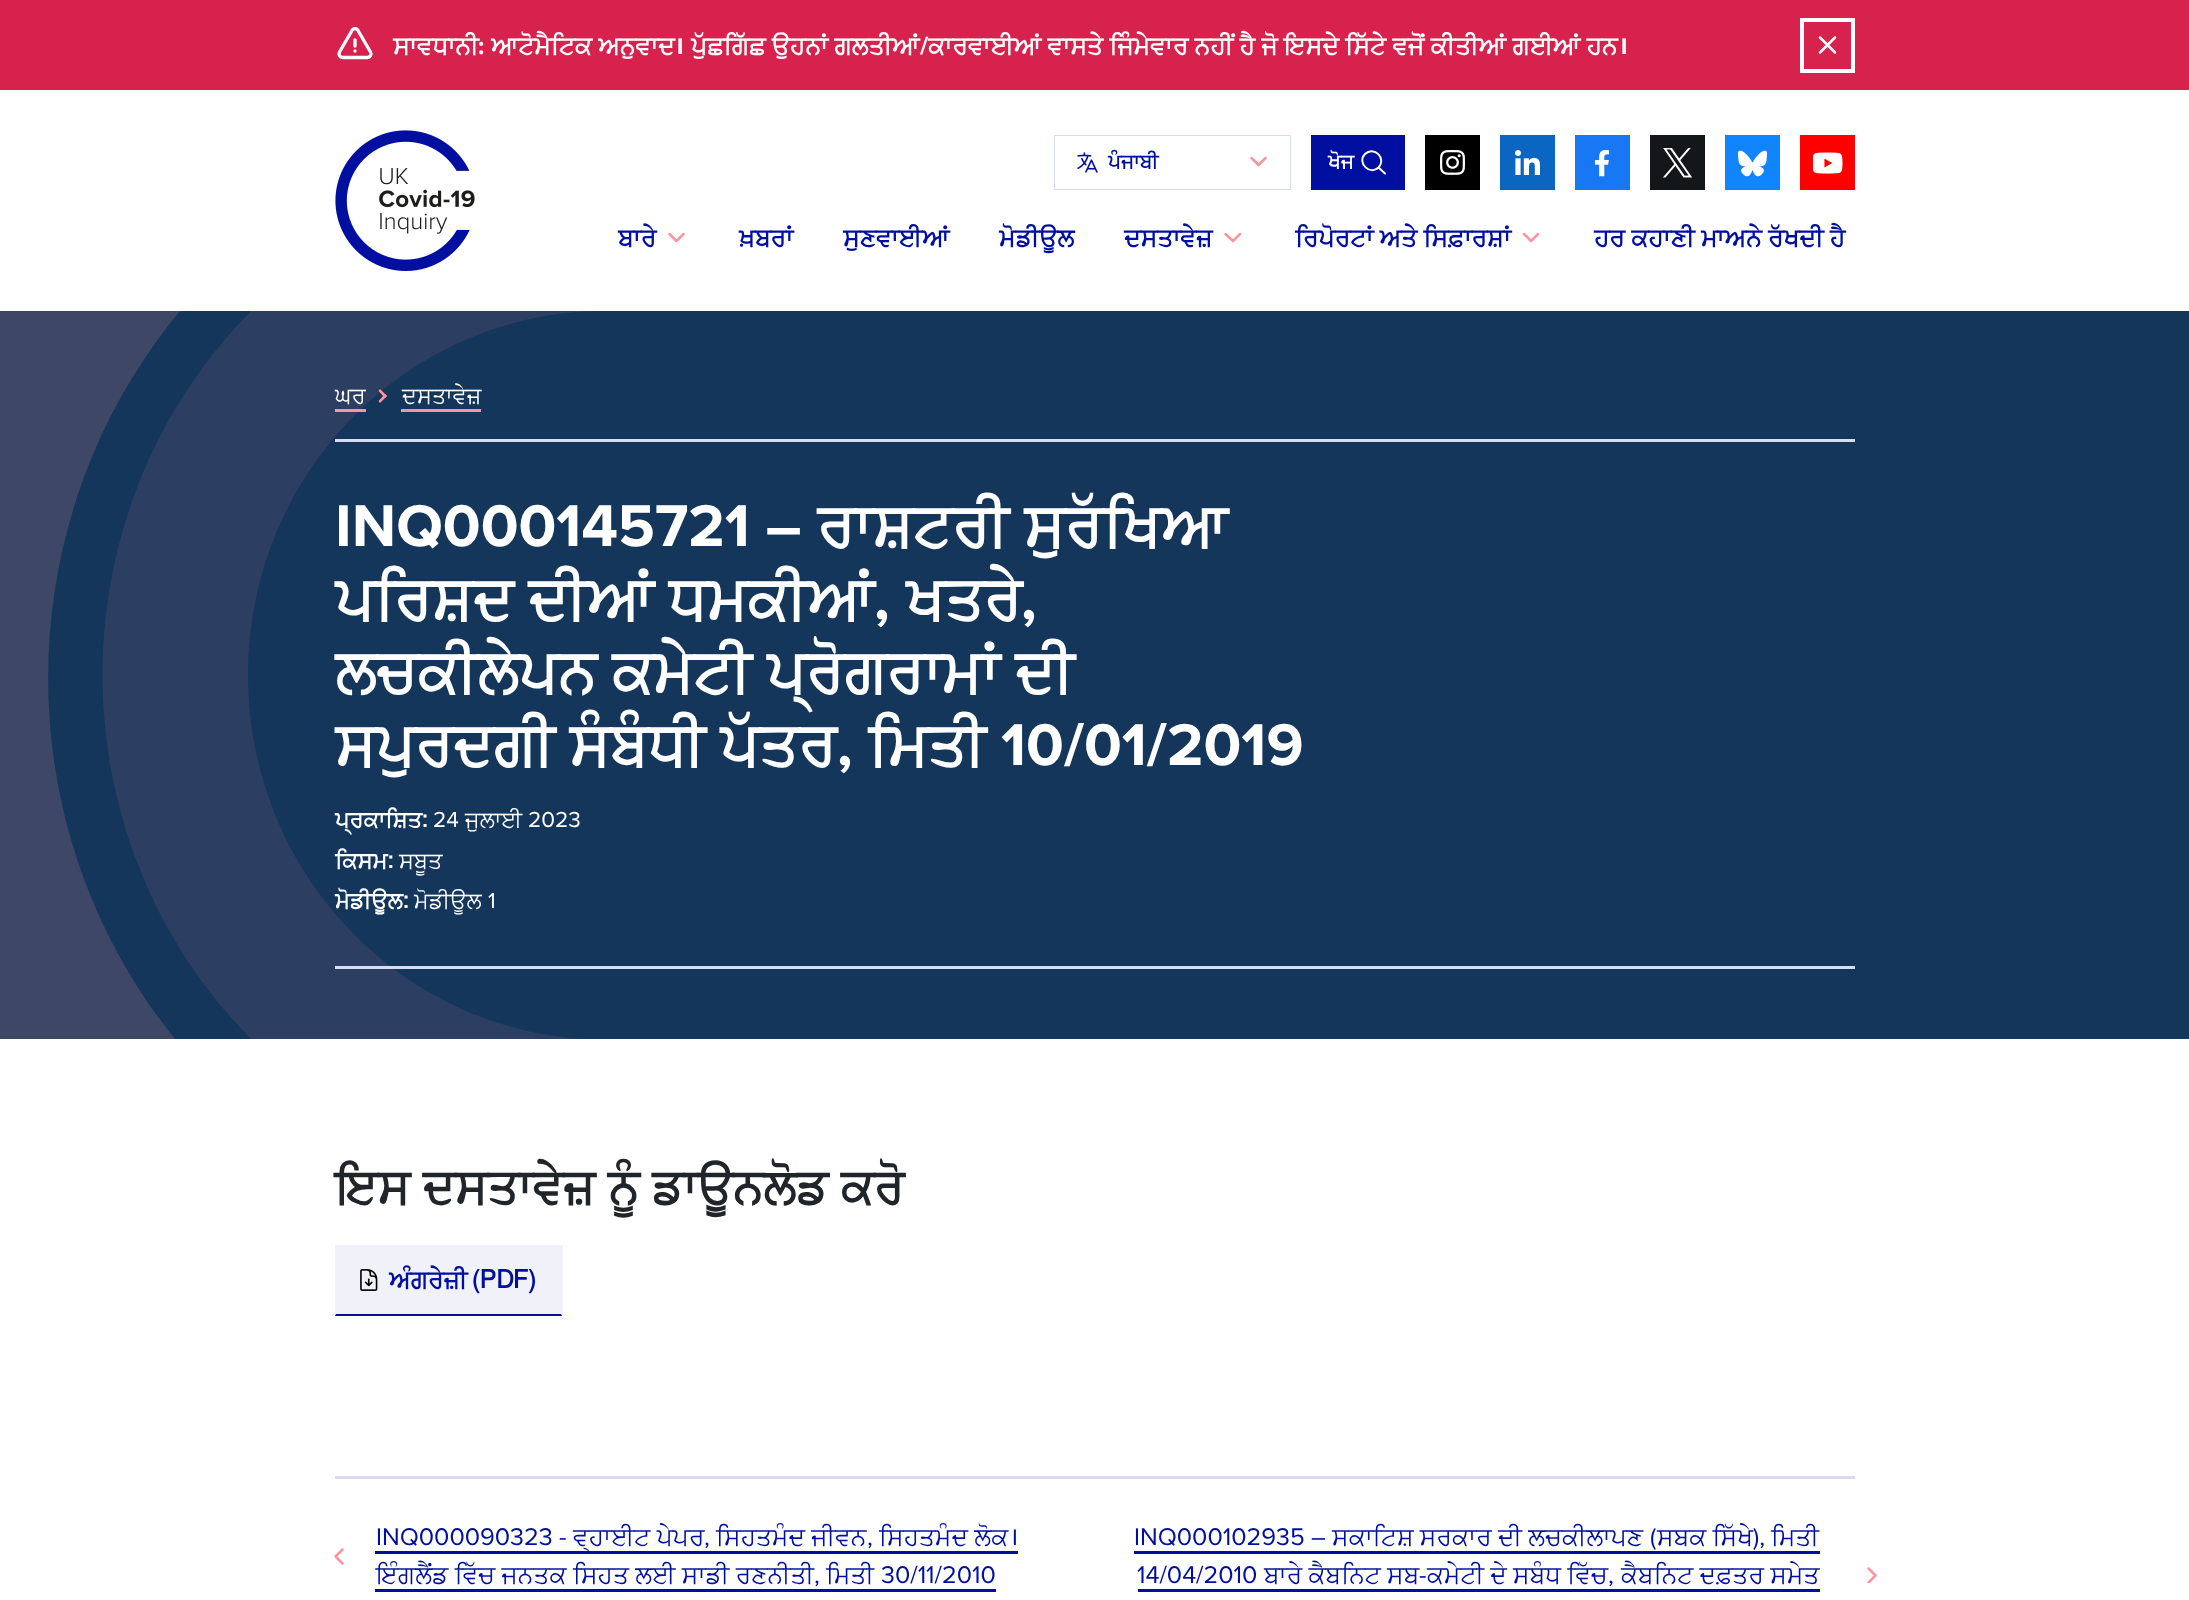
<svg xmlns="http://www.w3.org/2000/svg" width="2189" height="1600">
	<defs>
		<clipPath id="clip1"><path d="M1883.5 1567V1583H1771V1567Z" /></clipPath>
	</defs>
	<rect width="100%" height="100%" fill="#FFFFFF" />
	<rect x="0" y="0" width="2189" height="90" fill="#D8224E" />
	<path d="M355 40V46M339.5 52C338 54.5 340 57.5 342.5 57.5H367.5C370 57.5 372 54.5 370.5 52L358 30.5C357 28 353 28 352 30.5ZM355 51H355Z" fill="none" stroke="#FFFFFF" stroke-width="3.3" stroke-linecap="round" stroke-linejoin="round" />
	<g font-family="FreeSans" font-size="25" font-weight="700" fill="#FFFFFF">
		<text x="393" y="54">ਸਾਵਧਾਨੀ</text>
		<text x="491" y="54" word-spacing="0.1">ਆਟੋਮੈਟਿਕ ਅਨੁਵਾਦ</text>
	</g>
	<text x="674" y="54" font-family="Noto Sans" font-size="25" font-weight="700" fill="#FFFFFF">।</text>
	<text x="691" y="54" word-spacing="0.1" font-family="FreeSans" font-size="25" font-weight="700" fill="#FFFFFF">ਪੁੱਛਗਿੱਛ ਉਹਨਾਂ ਗਲਤੀਆਂ</text>
	<text x="920" y="54" font-family="Proxima Nova" font-size="25" font-weight="700" fill="#FFFFFF">/</text>
	<text x="928" y="54" word-spacing="0.1" font-family="FreeSans" font-size="25" font-weight="700" fill="#FFFFFF">ਕਾਰਵਾਈਆਂ ਵਾਸਤੇ ਜਿੰਮੇਵਾਰ ਨਹੀਂ ਹੈ ਜੋ ਇਸਦੇ ਸਿੱਟੇ ਵਜੋਂ ਕੀਤੀਆਂ ਗਈਆਂ ਹਨ</text>
	<text x="478" y="54" font-family="Proxima Nova" font-size="25" font-weight="700" fill="#FFFFFF">:</text>
	<text x="1618" y="54" font-family="Noto Sans" font-size="25" font-weight="700" fill="#FFFFFF">।</text>
	<rect x="1802" y="20" width="51" height="51" fill="none" stroke="#FFFFFF" stroke-width="4" />
	<path d="M1820 52.5L1835 37.5M1820 37.5L1835 52.5" fill="none" stroke="#FFFFFF" stroke-width="2.5" stroke-linecap="round" stroke-linejoin="round" />
	<image x="335" y="130" width="140" height="141" href="assets/img1.png" />
	<rect x="1054.5" y="135.5" width="236" height="54" fill="none" stroke="#D9DBF1" />
	<image x="1077" y="152" width="21" height="21" href="assets/img2.png" />
	<text x="1108" y="168" font-family="FreeSans" font-size="20" font-weight="700" fill="#000F9F">ਪੰਜਾਬੀ</text>
	<path d="M1265.5 158L1258.5 165L1251.5 158" fill="none" stroke="#FF949F" stroke-width="2.5" stroke-linecap="round" stroke-linejoin="round" />
	<rect x="1311" y="135" width="94" height="55" fill="#000F9F" />
	<text x="1328" y="168" font-family="FreeSans" font-size="20" font-weight="700" fill="#FFFFFF">ਖੋਜ</text>
	<path d="M1385 173.5L1378.5 167.5M1378.5 167.5C1387 158.5 1374 145.5 1365 154C1356.5 162.5 1370 176 1378.5 167.5Z" fill="none" stroke="#FFFFFF" stroke-width="1.9" stroke-linecap="round" stroke-linejoin="round" />
	<rect x="1425" y="135" width="55" height="55" fill="#000000" />
	<image x="1440" y="150" width="25" height="25" href="assets/img3.png" />
	<rect x="1500" y="135" width="55" height="55" fill="#0B66C2" />
	<image x="1515" y="150" width="25" height="25" href="assets/img4.png" />
	<rect x="1575" y="135" width="55" height="55" fill="#1877F2" />
	<image x="1595" y="150" width="15" height="27" href="assets/img5.png" />
	<rect x="1650" y="135" width="55" height="55" fill="#14171A" />
	<image x="1663" y="148" width="29" height="30" href="assets/img6.png" />
	<rect x="1725" y="135" width="55" height="55" fill="#1185FE" />
	<image x="1737" y="150" width="31" height="27" href="assets/img7.png" />
	<rect x="1800" y="135" width="55" height="55" fill="#FF0000" />
	<image x="1813" y="152" width="30" height="22" href="assets/img8.png" />
	<text x="618" y="246" font-family="FreeSans" font-size="25" font-weight="700" fill="#000F9F">ਬਾਰੇ</text>
	<path d="M683.5 234L676.5 241L669.5 234" fill="none" stroke="#FF949F" stroke-width="2.5" stroke-linecap="round" stroke-linejoin="round" />
	<g font-family="FreeSans" font-size="25" font-weight="700" fill="#000F9F">
		<text x="739" y="246">ਖ਼ਬਰਾਂ</text>
		<text x="843" y="246">ਸੁਣਵਾਈਆਂ</text>
		<text x="999" y="246">ਮੋਡੀਊਲ</text>
		<text x="1124" y="246">ਦਸਤਾਵੇਜ਼</text>
	</g>
	<path d="M1240 234L1233 241L1225.5 234" fill="none" stroke="#FF949F" stroke-width="2.5" stroke-linecap="round" stroke-linejoin="round" />
	<text x="1295" y="246" font-family="FreeSans" font-size="25" font-weight="700" fill="#000F9F">ਰਿਪੋਰਟਾਂ ਅਤੇ ਸਿਫ਼ਾਰਸ਼ਾਂ</text>
	<path d="M1538 234L1531 241L1524 234" fill="none" stroke="#FF949F" stroke-width="2.5" stroke-linecap="round" stroke-linejoin="round" />
	<text x="1594" y="246" word-spacing="0.1" font-family="FreeSans" font-size="25" font-weight="700" fill="#000F9F">ਹਰ ਕਹਾਣੀ ਮਾਅਨੇ ਰੱਖਦੀ ਹੈ</text>
	<rect x="48" y="311" width="2141" height="728" fill="#15365B" />
	<path d="M-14 311C-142 535-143 814-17 1039H175C4 827 6 521 180 311Z" fill="#3F4767" />
	<path d="M251 311C53 512 53 838 251 1039H586C398 1029 248 870 248 675C248 477 403 316 596 311Z" fill="#2C3F62" />
	<text x="335" y="403" font-family="FreeSans" font-size="22.5" fill="#FFFFFF">ਘਰ</text>
	<rect x="335" y="409" width="31" height="3" fill="#FF949F" />
	<path d="M380 389L387 396L385 398L378.5 391Z" fill="#FF949F" />
	<path d="M385 394L387 396L380 403L378.5 401Z" fill="#FF949F" />
	<text x="402" y="403" font-family="FreeSans" font-size="22.5" fill="#FFFFFF">ਦਸਤਾਵੇਜ਼</text>
	<rect x="401" y="409" width="80" height="3" fill="#FF949F" />
	<rect x="335" y="439" width="1520" height="3" fill="#D9DBF1" />
	<text x="335" y="546" font-family="Proxima Nova" font-size="61" font-weight="700" fill="#FFFFFF">INQ000145721 –</text>
	<g font-family="FreeSans" font-size="61" font-weight="700" fill="#FFFFFF">
		<text x="817" y="546">ਰਾਸ਼ਟਰੀ</text>
		<text x="1024" y="546">ਸੁਰੱਖਿਆ</text>
		<text x="335" y="619">ਪਰਿਸ਼ਦ ਦੀਆਂ ਧਮਕੀਆਂ</text>
	</g>
	<text x="874" y="619" font-family="Proxima Nova" font-size="61" font-weight="700" fill="#FFFFFF">,</text>
	<text x="906" y="619" font-family="FreeSans" font-size="61" font-weight="700" fill="#FFFFFF">ਖਤਰੇ</text>
	<text x="1021" y="619" font-family="Proxima Nova" font-size="61" font-weight="700" fill="#FFFFFF">,</text>
	<g font-family="FreeSans" font-size="61" font-weight="700" fill="#FFFFFF">
		<text x="335" y="692" word-spacing="0.5">ਲਚਕੀਲੇਪਨ ਕਮੇਟੀ ਪ੍ਰੋਗਰਾਮਾਂ ਦੀ</text>
		<text x="335" y="765">ਸਪੁਰਦਗੀ ਸੰਬੰਧੀ ਪੱਤਰ</text>
	</g>
	<text x="837" y="765" font-family="Proxima Nova" font-size="61" font-weight="700" fill="#FFFFFF">,</text>
	<text x="868" y="765" font-family="FreeSans" font-size="61" font-weight="700" fill="#FFFFFF">ਮਿਤੀ</text>
	<text x="1001" y="765" font-family="Proxima Nova" font-size="61" font-weight="700" fill="#FFFFFF">10/01/2019</text>
	<text x="335" y="827" font-family="FreeSans" font-size="22.5" font-weight="700" fill="#FFFFFF">ਪ੍ਰਕਾਸ਼ਿਤ:</text>
	<text x="433" y="827" font-family="Proxima Nova" font-size="22.5" fill="#FFFFFF">24</text>
	<text x="465" y="827" font-family="FreeSans" font-size="22.5" fill="#FFFFFF">ਜੁਲਾਈ</text>
	<text x="528" y="827" font-family="Proxima Nova" font-size="22.5" fill="#FFFFFF">2023</text>
	<text x="335" y="868" font-family="FreeSans" font-size="22.5" font-weight="700" fill="#FFFFFF">ਕਿਸਮ:</text>
	<text x="399" y="868" font-family="FreeSans" font-size="22.5" fill="#FFFFFF">ਸਬੂਤ</text>
	<text x="335" y="908" font-family="FreeSans" font-size="22.5" font-weight="700" fill="#FFFFFF">ਮੋਡੀਊਲ:</text>
	<text x="414" y="908" font-family="FreeSans" font-size="22.5" fill="#FFFFFF">ਮੋਡੀਊਲ</text>
	<text x="488" y="908" font-family="Proxima Nova" font-size="22.5" fill="#FFFFFF">1</text>
	<rect x="335" y="966" width="1520" height="3" fill="#D9DBF1" />
	<text x="335" y="1203" word-spacing="0.5" font-family="FreeSans" font-size="48.75" font-weight="700" fill="#212529">ਇਸ ਦਸਤਾਵੇਜ਼ ਨੂੰ ਡਾਊਨਲੋਡ ਕਰੋ</text>
	<rect x="335" y="1245" width="228" height="71" fill="#F0F1F9" />
	<image x="360" y="1269" width="18" height="22" href="assets/img9.png" />
	<path d="M562 1316H335L336 1314H561Z" fill="#000F9F" />
	<text x="389" y="1288" word-spacing="-2" font-family="FreeSans" font-size="25" font-weight="700" fill="#000F9F">ਅੰਗਰੇਜ਼ੀ (PDF)</text>
	<rect x="335" y="1476" width="1520" height="3" fill="#D9DBF1" />
	<text x="376" y="1545" font-family="Proxima Nova" font-size="25" fill="#000F9F">INQ000090323 -</text>
	<rect x="375" y="1551" width="643" height="3" fill="#000F9F" />
	<text x="573" y="1545" font-family="FreeSans" font-size="25" fill="#000F9F">ਵ੍ਹਾਈਟ ਪੇਪਰ</text>
	<text x="704" y="1545" font-family="Proxima Nova" font-size="25" fill="#000F9F">,</text>
	<text x="716" y="1545" font-family="FreeSans" font-size="25" fill="#000F9F">ਸਿਹਤਮੰਦ ਜੀਵਨ</text>
	<text x="867" y="1545" font-family="Proxima Nova" font-size="25" fill="#000F9F">,</text>
	<text x="879" y="1545" font-family="FreeSans" font-size="25" fill="#000F9F">ਸਿਹਤਮੰਦ ਲੋਕ</text>
	<text x="1009" y="1545" font-family="Noto Sans" font-size="25" fill="#000F9F">।</text>
	<path d="M342.5 1563.5L335.5 1556.5L342.5 1549.5" fill="none" stroke="#FF949F" stroke-width="2.5" stroke-linecap="round" stroke-linejoin="round" />
	<text x="376" y="1583" word-spacing="0.1" font-family="FreeSans" font-size="25" fill="#000F9F">ਇੰਗਲੈਂਡ ਵਿੱਚ ਜਨਤਕ ਸਿਹਤ ਲਈ ਸਾਡੀ ਰਣਨੀਤੀ</text>
	<text x="814" y="1583" font-family="Proxima Nova" font-size="25" fill="#000F9F">,</text>
	<rect x="375" y="1589" width="621" height="3" fill="#000F9F" />
	<text x="826" y="1583" font-family="FreeSans" font-size="25" fill="#000F9F">ਮਿਤੀ</text>
	<g font-family="Proxima Nova" font-size="25" fill="#000F9F">
		<text x="881" y="1583">30/11/2010</text>
		<text x="1134" y="1545">INQ000102935 –</text>
	</g>
	<text x="1332" y="1545" font-family="FreeSans" font-size="25" fill="#000F9F">ਸਕਾਟਿਸ਼ ਸਰਕਾਰ ਦੀ ਲਚਕੀਲਾਪਣ</text>
	<text x="1650" y="1545" font-family="Proxima Nova" font-size="25" fill="#000F9F">(</text>
	<rect x="1134" y="1551" width="686" height="3" fill="#000F9F" />
	<text x="1657" y="1545" font-family="FreeSans" font-size="25" fill="#000F9F">ਸਬਕ ਸਿੱਖੇ</text>
	<text x="1753" y="1545" font-family="Proxima Nova" font-size="25" fill="#000F9F">),</text>
	<text x="1771" y="1545" font-family="FreeSans" font-size="25" fill="#000F9F">ਮਿਤੀ</text>
	<text x="1137" y="1583" font-family="Proxima Nova" font-size="25" fill="#000F9F">14/04/2010</text>
	<text x="1264" y="1583" font-family="FreeSans" font-size="25" fill="#000F9F">ਬਾਰੇ ਕੈਬਨਿਟ ਸਬ</text>
	<text x="1419" y="1583" font-family="Proxima Nova" font-size="25" fill="#000F9F">-</text>
	<text x="1427" y="1583" font-family="FreeSans" font-size="25" fill="#000F9F">ਕਮੇਟੀ ਦੇ ਸਬੰਧ ਵਿੱਚ</text>
	<text x="1608" y="1583" font-family="Proxima Nova" font-size="25" fill="#000F9F">,</text>
	<text x="1621" y="1583" font-family="FreeSans" font-size="25" fill="#000F9F">ਕੈਬਨਿਟ ਦਫ਼ਤਰ ਸਮੇਤ</text>
	<g clip-path="url(#clip1)">
		<path d="M1868.5 1568.5L1875.5 1575.5L1868.5 1582.5" fill="none" stroke="#FF949F" stroke-width="2.5" stroke-linecap="round" stroke-linejoin="round" />
	</g>
	<rect x="1138" y="1589" width="682" height="3" fill="#000F9F" />
</svg>
